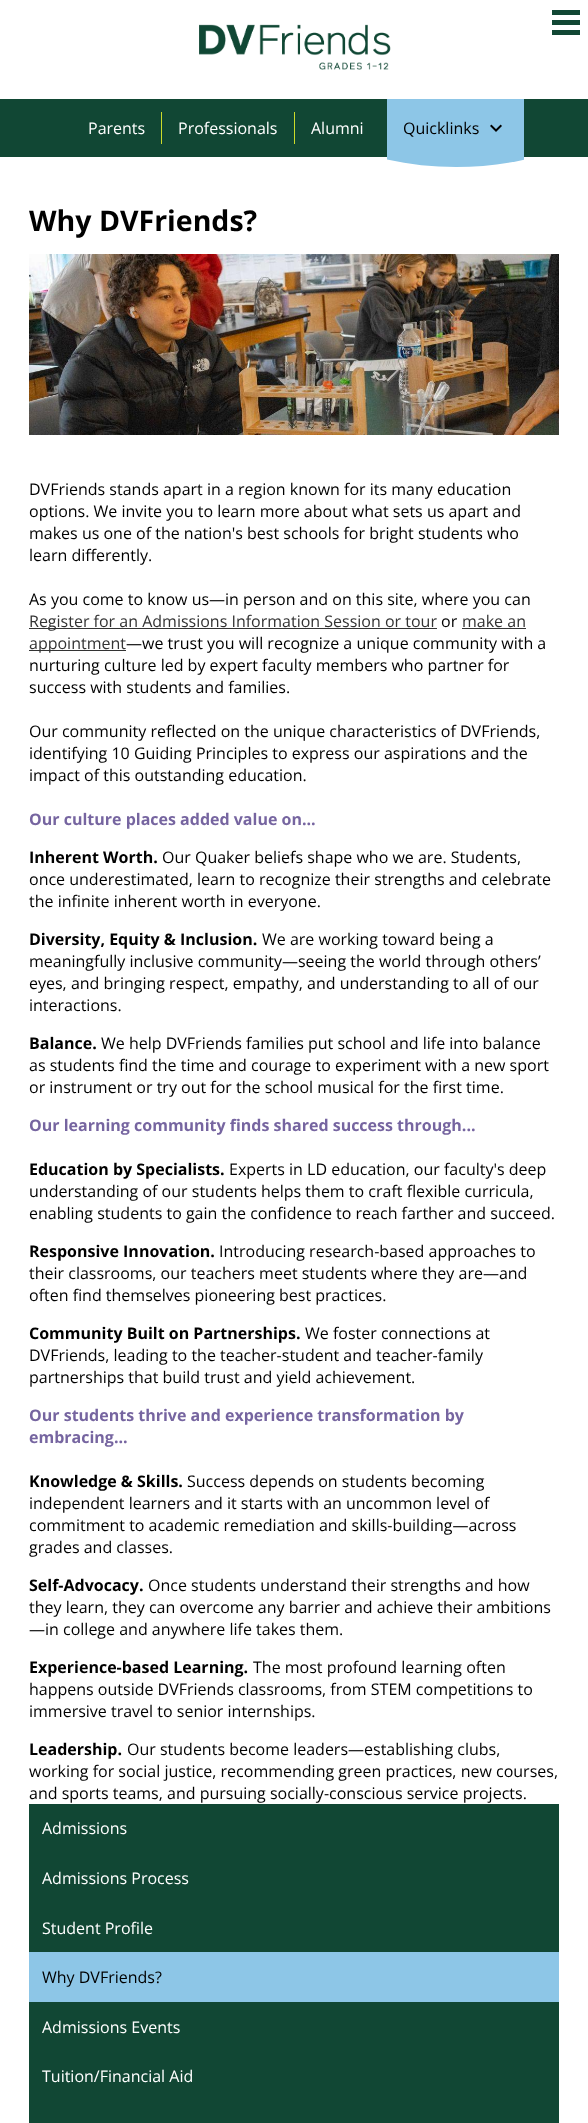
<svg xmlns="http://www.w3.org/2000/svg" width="588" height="2123">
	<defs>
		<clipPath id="clip1"><rect x="387" y="157" width="137" height="10" /></clipPath>
	</defs>
	<rect width="100%" height="100%" fill="#FFFFFF" />
	<image x="199" y="24" width="192" height="46" href="assets/img1.png" />
	<rect x="552" y="10" width="28" height="5" fill="#114734" />
	<rect x="552" y="20" width="28" height="5" fill="#114734" />
	<rect x="552" y="30" width="28" height="5" fill="#114734" />
	<rect x="0" y="99" width="588" height="58" fill="#114734" />
	<text x="88" y="134" font-family="Open Sans" font-size="16" fill="#FFFFFF">Parents</text>
	<rect x="161" y="112" width="1" height="32" fill="#CCDB2A" />
	<text x="178" y="134" font-family="Open Sans" font-size="16" fill="#FFFFFF">Professionals</text>
	<rect x="294" y="112" width="1" height="32" fill="#CCDB2A" />
	<text x="311" y="134" font-family="Open Sans" font-size="16" fill="#FFFFFF">Alumni</text>
	<rect x="387" y="99" width="137" height="58" fill="#8DC6E7" />
	<text x="403" y="134" font-family="Open Sans" font-size="16" fill="#000000">Quicklinks</text>
	<image x="490" y="124" width="12" height="8" href="assets/img2.png" />
	<g clip-path="url(#clip1)">
		<path d="M381 156H531V158C482 170 430 170 381 158Z" fill="#8DC6E7" />
	</g>
	<text x="29" y="231" font-family="Open Sans" font-size="28.5" font-weight="700" fill="#000000">Why DVFriends?</text>
	<image x="29" y="254" width="530" height="181" href="assets/img3.png" />
	<g font-family="Open Sans" font-size="16" fill="#000000">
		<text x="29" y="495">DVFriends stands apart in a region known for its many education</text>
		<text x="29" y="517">options. We invite you to learn more about what sets us apart and</text>
		<text x="29" y="539">makes us one of the nation's best schools for bright students who</text>
		<text x="29" y="561">learn differently.</text>
		<text x="29" y="605">As you come to know us—in person and on this site, where you can</text>
	</g>
	<rect x="29" y="628" width="408" height="1" fill="#333333" />
	<text x="29" y="627" font-family="Open Sans" font-size="16" fill="#333333">Register for an Admissions Information Session or tour</text>
	<text x="441" y="627" font-family="Open Sans" font-size="16" fill="#000000">or</text>
	<text x="462" y="627" font-family="Open Sans" font-size="16" fill="#333333">make an</text>
	<rect x="462" y="628" width="64" height="1" fill="#333333" />
	<rect x="29" y="650" width="97" height="1" fill="#333333" />
	<text x="29" y="649" font-family="Open Sans" font-size="16" fill="#333333">appointment</text>
	<g font-family="Open Sans" font-size="16" fill="#000000">
		<text x="126" y="649">—we trust you will recognize a unique community with a</text>
		<text x="29" y="671">nurturing culture led by expert faculty members who partner for</text>
		<text x="29" y="693">success with students and families.</text>
		<text x="29" y="737">Our community reflected on the unique characteristics of DVFriends,</text>
		<text x="29" y="759">identifying 10 Guiding Principles to express our aspirations and the</text>
		<text x="29" y="781">impact of this outstanding education.</text>
	</g>
	<text x="29" y="825" font-family="Open Sans" font-size="16" font-weight="700" fill="#7665A0">Our culture places added value on...</text>
	<text x="29" y="863" font-family="Open Sans" font-size="16" font-weight="700" fill="#000000">Inherent Worth.</text>
	<g font-family="Open Sans" font-size="16" fill="#000000">
		<text x="162" y="863">Our Quaker beliefs shape who we are. Students,</text>
		<text x="29" y="885">once underestimated, learn to recognize their strengths and celebrate</text>
		<text x="29" y="907">the infinite inherent worth in everyone.</text>
	</g>
	<text x="29" y="945" font-family="Open Sans" font-size="16" font-weight="700" fill="#000000">Diversity, Equity &amp; Inclusion.</text>
	<g font-family="Open Sans" font-size="16" fill="#000000">
		<text x="262" y="945">We are working toward being a</text>
		<text x="29" y="967">meaningfully inclusive community—seeing the world through others’</text>
		<text x="29" y="989">eyes, and bringing respect, empathy, and understanding to all of our</text>
		<text x="29" y="1011">interactions.</text>
	</g>
	<text x="29" y="1049" font-family="Open Sans" font-size="16" font-weight="700" fill="#000000">Balance.</text>
	<g font-family="Open Sans" font-size="16" fill="#000000">
		<text x="101" y="1049">We help DVFriends families put school and life into balance</text>
		<text x="29" y="1071">as students find the time and courage to experiment with a new sport</text>
		<text x="29" y="1093">or instrument or try out for the school musical for the first time.</text>
	</g>
	<text x="29" y="1131" font-family="Open Sans" font-size="16" font-weight="700" fill="#7665A0">Our learning community finds shared success through...</text>
	<text x="29" y="1175" font-family="Open Sans" font-size="16" font-weight="700" fill="#000000">Education by Specialists.</text>
	<g font-family="Open Sans" font-size="16" fill="#000000">
		<text x="229" y="1175">Experts in LD education, our faculty's deep</text>
		<text x="29" y="1197">understanding of our students helps them to craft flexible curricula,</text>
		<text x="29" y="1219">enabling students to gain the confidence to reach farther and succeed.</text>
	</g>
	<text x="29" y="1257" font-family="Open Sans" font-size="16" font-weight="700" fill="#000000">Responsive Innovation.</text>
	<g font-family="Open Sans" font-size="16" fill="#000000">
		<text x="219" y="1257">Introducing research-based approaches to</text>
		<text x="29" y="1279">their classrooms, our teachers meet students where they are—and</text>
		<text x="29" y="1301">often find themselves pioneering best practices.</text>
	</g>
	<text x="29" y="1339" font-family="Open Sans" font-size="16" font-weight="700" fill="#000000">Community Built on Partnerships.</text>
	<g font-family="Open Sans" font-size="16" fill="#000000">
		<text x="305" y="1339">We foster connections at</text>
		<text x="29" y="1361">DVFriends, leading to the teacher-student and teacher-family</text>
		<text x="29" y="1383">partnerships that build trust and yield achievement.</text>
	</g>
	<g font-family="Open Sans" font-size="16" font-weight="700" fill="#7665A0">
		<text x="29" y="1421">Our students thrive and experience transformation by</text>
		<text x="29" y="1443">embracing...</text>
	</g>
	<text x="29" y="1487" font-family="Open Sans" font-size="16" font-weight="700" fill="#000000">Knowledge &amp; Skills.</text>
	<g font-family="Open Sans" font-size="16" fill="#000000">
		<text x="187" y="1487">Success depends on students becoming</text>
		<text x="29" y="1509">independent learners and it starts with an uncommon level of</text>
		<text x="29" y="1531">commitment to academic remediation and skills-building—across</text>
		<text x="29" y="1553">grades and classes.</text>
	</g>
	<text x="29" y="1591" font-family="Open Sans" font-size="16" font-weight="700" fill="#000000">Self-Advocacy.</text>
	<g font-family="Open Sans" font-size="16" fill="#000000">
		<text x="148" y="1591">Once students understand their strengths and how</text>
		<text x="29" y="1613">they learn, they can overcome any barrier and achieve their ambitions</text>
		<text x="29" y="1635">—in college and anywhere life takes them.</text>
	</g>
	<text x="29" y="1673" font-family="Open Sans" font-size="16" font-weight="700" fill="#000000">Experience-based Learning.</text>
	<g font-family="Open Sans" font-size="16" fill="#000000">
		<text x="253" y="1673">The most profound learning often</text>
		<text x="29" y="1695">happens outside DVFriends classrooms, from STEM competitions to</text>
		<text x="29" y="1717">immersive travel to senior internships.</text>
	</g>
	<text x="29" y="1755" font-family="Open Sans" font-size="16" font-weight="700" fill="#000000">Leadership.</text>
	<g font-family="Open Sans" font-size="16" fill="#000000">
		<text x="127" y="1755">Our students become leaders—establishing clubs,</text>
		<text x="29" y="1777">working for social justice, recommending green practices, new courses,</text>
		<text x="29" y="1799">and sports teams, and pursuing socially-conscious service projects.</text>
	</g>
	<rect x="29" y="1804" width="530" height="319" fill="#114734" />
	<g font-family="Open Sans" font-size="16" fill="#FFFFFF">
		<text x="42" y="1834">Admissions</text>
		<text x="42" y="1884">Admissions Process</text>
		<text x="42" y="1934">Student Profile</text>
	</g>
	<rect x="29" y="1952" width="530" height="50" fill="#8DC6E7" />
	<text x="42" y="1983" font-family="Open Sans" font-size="16" fill="#000000">Why DVFriends?</text>
	<g font-family="Open Sans" font-size="16" fill="#FFFFFF">
		<text x="42" y="2033">Admissions Events</text>
		<text x="42" y="2082">Tuition/Financial Aid</text>
	</g>
</svg>
